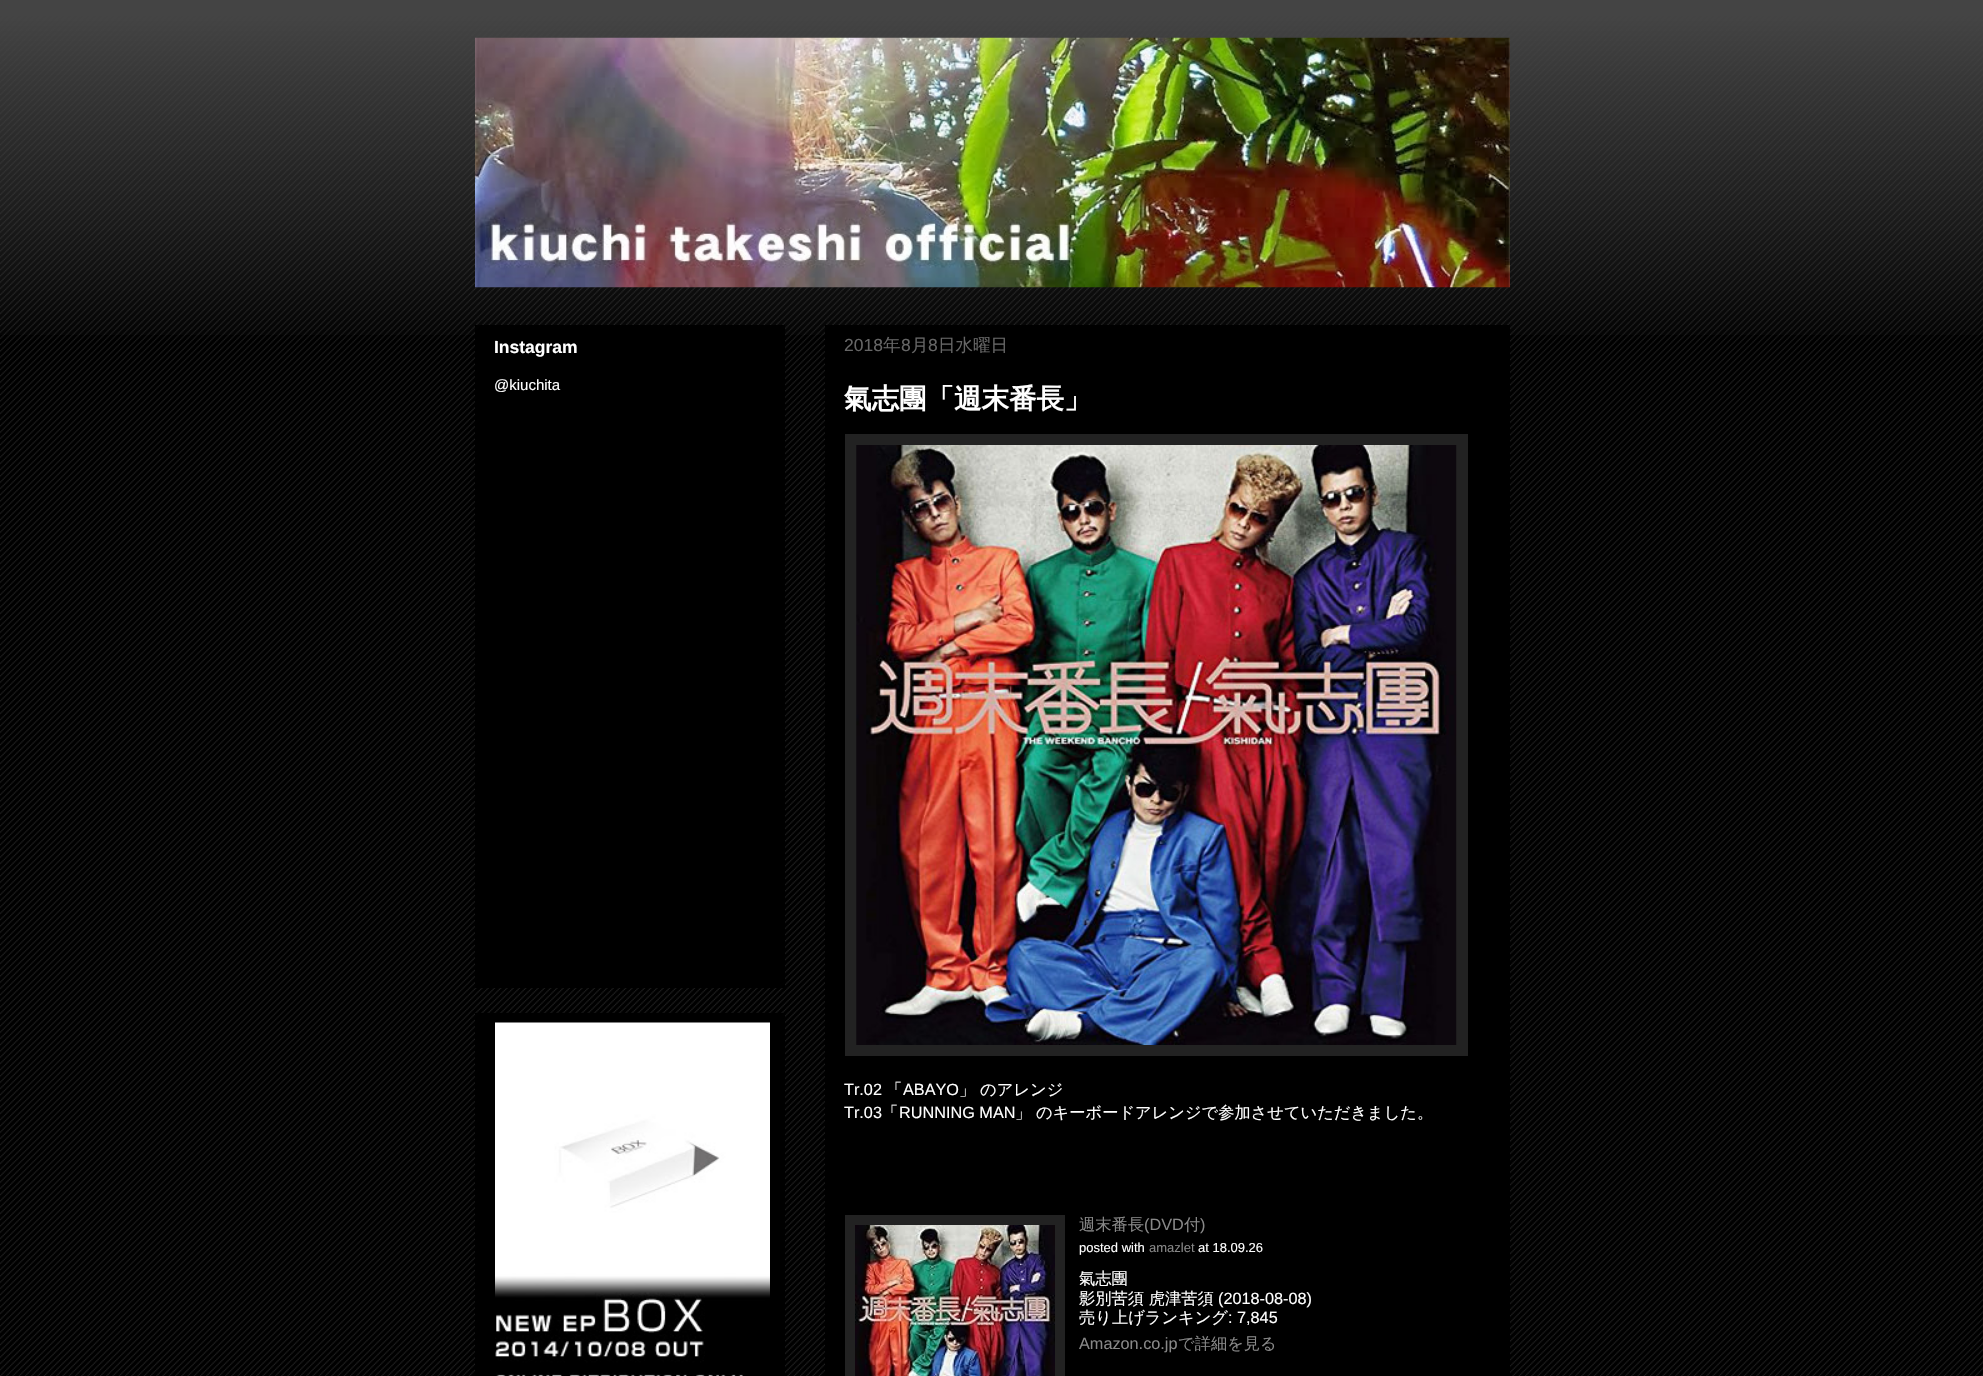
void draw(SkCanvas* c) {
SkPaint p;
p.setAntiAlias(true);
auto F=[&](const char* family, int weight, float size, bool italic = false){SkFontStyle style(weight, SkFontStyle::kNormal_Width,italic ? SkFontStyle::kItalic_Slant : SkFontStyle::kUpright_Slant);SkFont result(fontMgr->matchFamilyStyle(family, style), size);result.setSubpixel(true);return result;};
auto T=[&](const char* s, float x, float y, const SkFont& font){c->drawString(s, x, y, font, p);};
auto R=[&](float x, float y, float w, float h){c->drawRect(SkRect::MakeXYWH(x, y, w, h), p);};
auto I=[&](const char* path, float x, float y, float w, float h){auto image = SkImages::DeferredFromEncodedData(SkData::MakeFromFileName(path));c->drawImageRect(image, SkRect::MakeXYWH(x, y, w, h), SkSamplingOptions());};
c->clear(0xff000000);
I("1.png",0,16,1983,1360);
I("2.png",0,0,1983,335);
I("3.png",475,37,1035,251);
p.setColor(0xff000000);
R(475,325,310,663);
auto f1 = F("Liberation Sans",700,17.5);
p.setColor(0xffffffff);
T("Instagram",494,353,f1);
auto f2 = F("Liberation Sans",400,15);
T("@kiuchita",494,390,f2);
p.setColor(0xff000000);
R(475,1013,310,363);
I("4.png",495,1022,275,354);
R(825,325,685,1051);
auto f3 = F("Liberation Sans",400,17.5);
p.setColor(0xff666666);
T("2018",844,351,f3);
auto f4 = F("WenQuanYi Zen Hei",500,17.5);
T("年",883,351,f4);
T("8",901,351,f3);
T("月",911,351,f4);
T("8",928,351,f3);
T("日水曜日",938,351,f4);
auto f5 = F("WenQuanYi Zen Hei",700,27.5);
p.setColor(0xffffffff);
T("氣志團「週末番長」",844,408,f5);
p.setColor(0xff222222);
R(845,434,623,622);
I("5.png",856,445,601,600);
auto f6 = F("Liberation Sans",400,16.25);
p.setColor(0xffffffff);
T("Tr.02",844,1095,f6);
auto f7 = F("WenQuanYi Zen Hei",500,16.25);
T("「",886,1095,f7);
T("ABAYO",903,1095,f6);
T("」 のアレンジ",959,1095,f7);
T("Tr.03",844,1118,f6);
T("「",882,1118,f7);
T("RUNNING MAN",899,1118,f6);
T("」",1015,1118,f7);
T("のキーボードアレンジで参加させていただきました。",1036,1118,f7);
p.setColor(0xff222222);
R(845,1215,220,161);
I("6.png",855,1225,200,151);
p.setColor(0xff888888);
T("週末番長",1079,1230,f7);
T("(DVD",1144,1230,f6);
T("付",1184,1230,f7);
T(")",1200,1230,f6);
auto f8 = F("Liberation Sans",400,13);
p.setColor(0xffffffff);
T("posted with",1079,1252,f8);
p.setColor(0xff888888);
T("amazlet",1149,1252,f8);
p.setColor(0xffffffff);
T("at 18.09.26",1198,1252,f8);
T("氣志團",1079,1284,f7);
T("影別苦須 虎津苦須",1079,1304,f7);
T("(2018-08-08)",1218,1304,f6);
T("売り上げランキング",1079,1323,f7);
T(": 7,845",1228,1323,f6);
p.setColor(0xff888888);
T("Amazon.co.jp",1079,1349,f6);
T("で詳細を見る",1178,1349,f7);
}
